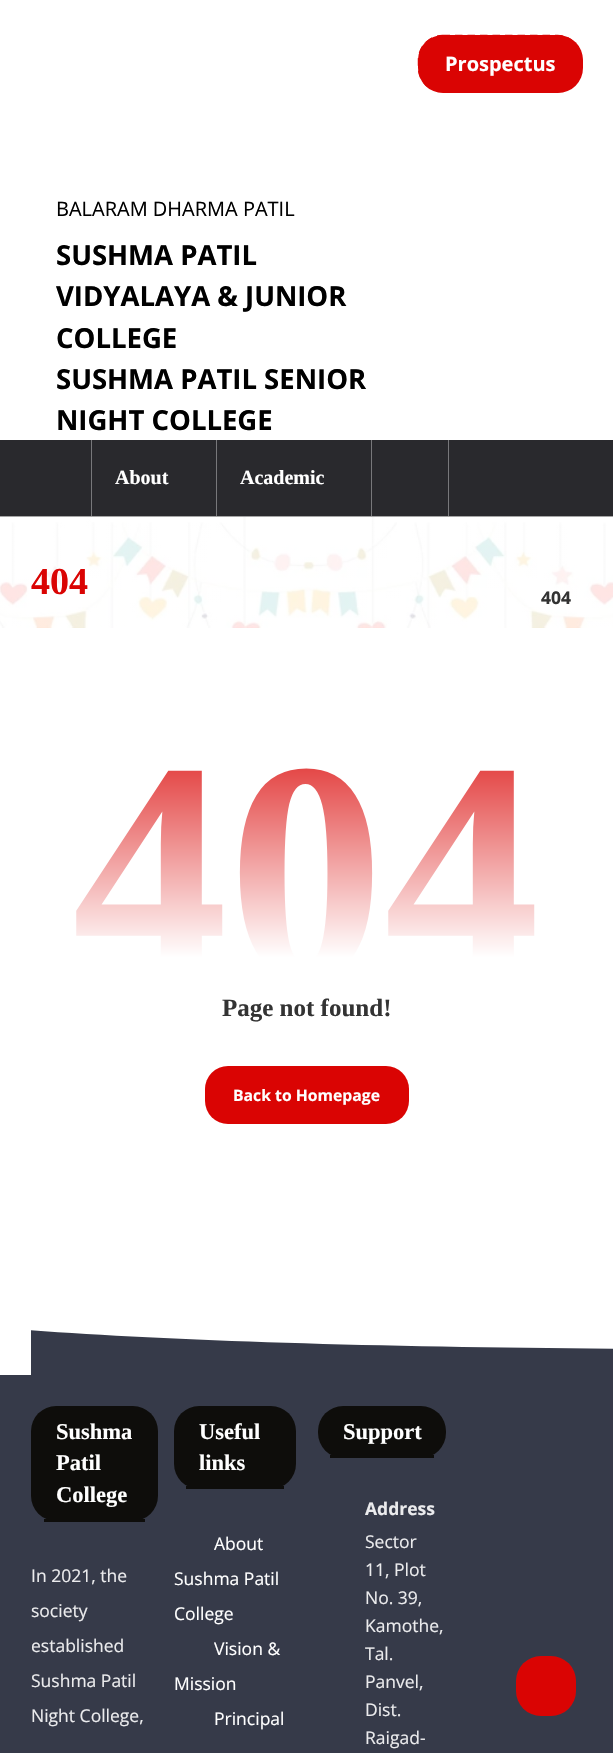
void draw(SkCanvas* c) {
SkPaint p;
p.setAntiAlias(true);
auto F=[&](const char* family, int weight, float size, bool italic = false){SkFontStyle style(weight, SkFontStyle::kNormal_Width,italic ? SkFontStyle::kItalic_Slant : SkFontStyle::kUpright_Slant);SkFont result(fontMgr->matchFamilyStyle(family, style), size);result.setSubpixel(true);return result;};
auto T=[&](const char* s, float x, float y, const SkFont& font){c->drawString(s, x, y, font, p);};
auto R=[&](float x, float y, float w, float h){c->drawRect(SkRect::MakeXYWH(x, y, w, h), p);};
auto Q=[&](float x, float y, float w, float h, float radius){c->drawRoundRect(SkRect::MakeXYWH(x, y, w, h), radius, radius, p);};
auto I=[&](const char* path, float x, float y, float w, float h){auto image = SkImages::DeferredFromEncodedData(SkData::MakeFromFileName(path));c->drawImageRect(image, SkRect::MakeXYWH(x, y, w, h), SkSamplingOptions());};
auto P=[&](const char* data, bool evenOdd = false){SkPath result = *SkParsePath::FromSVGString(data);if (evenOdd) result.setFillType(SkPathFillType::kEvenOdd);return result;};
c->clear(0xffffffff);
p.setColor(0xffda0403);
Q(418,35,165,58,25);
p.setStroke(true);
p.setStrokeWidth(2.5);
p.setPathEffect(SkDashPathEffect::Make({{7.5f,5}}, 0));
c->drawPath(P("M442.5 36h115c13 0 23.5 11 23.5 24v7.5c0 13-10.5 23.5-23.5 23.5h-115c-13 0-23.5-10.5-23.5-23.5v-7.5c0-13 10.5-24 23.5-24z"),p);
p.setPathEffect(nullptr);
auto f1 = F("Open Sans",700,20);
p.setStroke(false);
p.setColor(0xffffffff);
T("Prospectus",445,71,f1);
auto f2 = F("Open Sans",400,20);
p.setColor(0xff000000);
T("BALARAM DHARMA PATIL",56,216,f2);
auto f3 = F("Open Sans",700,27.5);
T("SUSHMA PATIL",56,265,f3);
T("VIDYALAYA & JUNIOR",56,306,f3);
T("COLLEGE",56,348,f3);
T("SUSHMA PATIL SENIOR",56,389,f3);
T("NIGHT COLLEGE",56,430,f3);
p.setColor(0xff29292d);
R(0,440,613,76);
p.setColor(0xff78787b);
R(91,440,1,76);
R(216,440,1,76);
auto f4 = F("Liberation Serif",700,20);
p.setColor(0xffffffff);
T("About",115,484,f4);
p.setColor(0xff78787b);
R(371,440,1,76);
p.setColor(0xffffffff);
T("Academic",240,484,f4);
p.setColor(0xff78787b);
R(448,440,1,76);
I("1.png",0,517,613,111);
p.setColor(0xffa5a5a5);
R(0,516,613,1);
auto f5 = F("Liberation Serif",700,38);
p.setColor(0xffda0403);
T("404",31,594,f5);
auto f6 = F("Open Sans",700,17.5);
p.setColor(0xff333333);
T("404",541,604,f6);
auto f7 = F("Liberation Serif",700,312);
{
const SkColor colors[] = {0xffda0403,0xffffffff};
const float stops[] = {0,.75};
const SkPoint ends[] = {{307,698}, {307,1044}};
p.setShader(SkGradientShader::MakeLinear(ends, colors, stops, 2, SkTileMode::kClamp));
p.setAlpha(255);
}
T("404",72,976,f7);
auto f8 = F("Liberation Serif",700,25);
p.setShader(nullptr);
p.setColor(0xff333333);
T("Page not found!",222,1016,f8);
p.setColor(0xffda0403);
Q(205,1066,204,58,23);
auto f9 = F("Open Sans",700,15.75);
p.setColor(0xffffffff);
T("Back to Homepage",233,1101,f9);
p.setColor(0xff363a49);
R(0,1375,613,378);
c->save();
c->clipRect(SkRect::MakeXYWH(31,1316,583,63));
c->drawPath(P("M28 1379v-49c160 12 410 19 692 19h-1c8 0 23 9 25 17c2-6 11-14 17-16l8-1h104l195-3c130-3 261-6 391-15v48z"),p);
c->restore();
p.setColor(0xff0e0d0b);
Q(31,1406,127,115,25);
R(44,1519,101,3);
auto f10 = F("Liberation Serif",700,22.5);
p.setColor(0xffffffff);
T("Sushma",56,1439,f10);
T("Patil",56,1470,f10);
T("College",56,1502,f10);
auto f11 = F("Open Sans",400,17.5);
p.setColor(0xffebebed);
T("In 2021, the",31,1582,f11);
T("society",31,1617,f11);
T("established",31,1652,f11);
T("Sushma Patil",31,1687,f11);
T("Night College,",31,1722,f11);
p.setColor(0xff0e0d0b);
Q(174,1406,122,83,25);
R(186,1486,98,3);
p.setColor(0xffffffff);
T("Useful",199,1439,f10);
T("links",199,1470,f10);
T("About",214,1550,f11);
T("Sushma Patil",174,1585,f11);
T("College",174,1620,f11);
T("Vision &",214,1655,f11);
T("Mission",174,1690,f11);
T("Principal",214,1725,f11);
p.setColor(0xff0e0d0b);
Q(318,1406,128,52,25);
R(330,1455,104,3);
p.setColor(0xffffffff);
T("Support",343,1439,f10);
p.setColor(0xffebebed);
T("Address",365,1515,f6);
T("Sector",365,1548,f11);
T("11, Plot",365,1576,f11);
T("No. 39,",365,1604,f11);
T("Kamothe,",365,1632,f11);
T("Tal.",365,1660,f11);
T("Panvel,",365,1688,f11);
T("Dist.",365,1716,f11);
T("Raigad-",365,1744,f11);
p.setColor(0xffda0403);
Q(516,1656,60,60,25);
}
